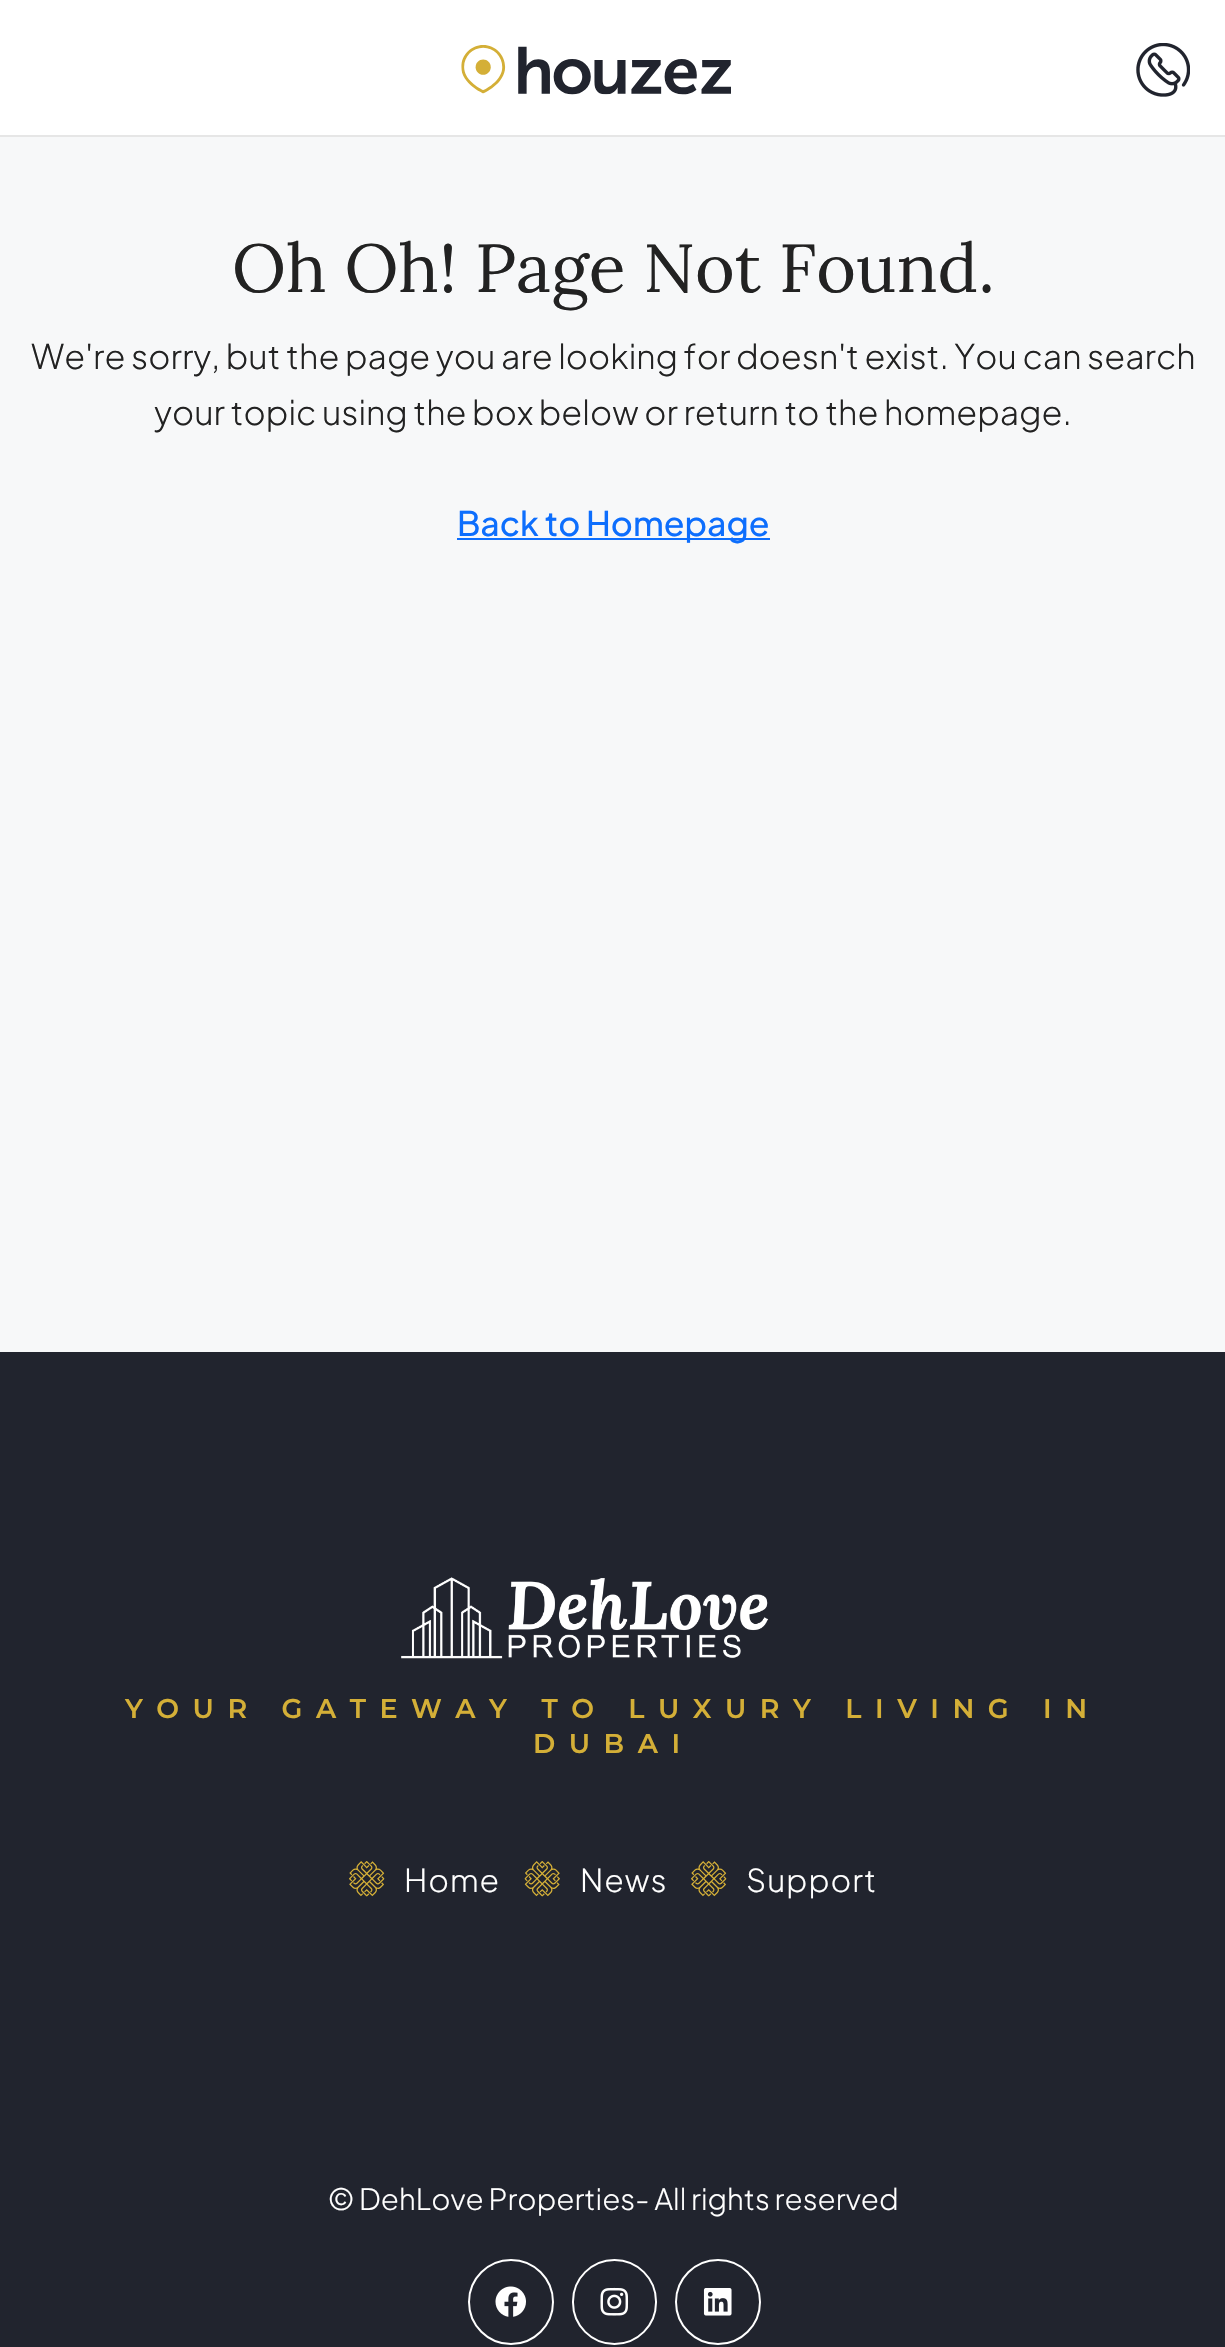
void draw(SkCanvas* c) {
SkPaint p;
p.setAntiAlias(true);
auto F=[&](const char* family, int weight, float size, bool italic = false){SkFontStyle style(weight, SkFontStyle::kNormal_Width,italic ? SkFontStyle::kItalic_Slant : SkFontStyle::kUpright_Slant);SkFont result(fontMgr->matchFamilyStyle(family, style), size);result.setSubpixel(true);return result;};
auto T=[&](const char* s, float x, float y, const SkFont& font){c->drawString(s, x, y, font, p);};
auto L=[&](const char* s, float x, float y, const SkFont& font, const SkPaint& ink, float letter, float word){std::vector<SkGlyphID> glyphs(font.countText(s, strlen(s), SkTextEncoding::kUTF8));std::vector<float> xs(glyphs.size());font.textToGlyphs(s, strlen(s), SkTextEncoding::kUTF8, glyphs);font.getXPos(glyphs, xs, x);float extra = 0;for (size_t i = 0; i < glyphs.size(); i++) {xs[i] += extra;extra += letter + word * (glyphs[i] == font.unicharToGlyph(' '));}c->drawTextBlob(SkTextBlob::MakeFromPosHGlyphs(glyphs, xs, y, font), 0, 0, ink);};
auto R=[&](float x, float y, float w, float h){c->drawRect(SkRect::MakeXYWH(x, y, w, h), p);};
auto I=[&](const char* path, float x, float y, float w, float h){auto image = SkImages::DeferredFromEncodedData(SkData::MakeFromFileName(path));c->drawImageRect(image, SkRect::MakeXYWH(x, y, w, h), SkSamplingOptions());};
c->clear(0xfff7f8f9);
p.setColor(0xffffffff);
R(0,0,1225,135);
p.setColor(0xffe6e6e6);
R(0,135,1225,2);
I("1.png",461,45,270,50);
I("2.png",1136,43,54,54);
auto f1 = F("Lora",400,67.9);
p.setColor(0xff222222);
T("Oh Oh! Page Not Found.",232,292,f1);
auto f2 = F("Plus Jakarta Sans",300,33.75);
T("We're sorry, but the page you are looking for doesn't exist. You can search",31,369,f2);
T("your topic using the box below or return to the homepage.",154,425,f2);
p.setColor(0xff0d6efd);
R(457,538,313,2);
auto f3 = F("Plus Jakarta Sans",500,33.75);
T("Back to Homepage",457,536,f3);
p.setColor(0xff21242e);
R(0,1352,1225,995);
I("3.png",401,1577,368,82);
auto f4 = F("Montserrat",600,27);
p.setColor(0xffd4af37);
L("YOUR GATEWAY TO LUXURY LIVING IN",125,1718,f4,p,13.5,0);
L("DUBAI",533,1753,f4,p,13.5,0);
I("4.png",349,1861,36,36);
auto f5 = F("Plus Jakarta Sans",300,31.5);
p.setColor(0xffffffff);
L("Home",404,1892,f5,p,1,0);
I("5.png",524,1861,36,36);
L("News",580,1892,f5,p,1,0);
I("4.png",691,1861,36,36);
L("Support",746,1892,f5,p,1,0);
auto f6 = F("Plus Jakarta Sans",300,29.25);
T("© DehLove Properties- All rights reserved",328,2210,f6);
p.setStroke(true);
p.setStrokeWidth(2);
c->drawCircle(511,2302,42,p);
I("6.png",495,2286,31,31);
c->drawRoundRect(SkRect::MakeXYWH(573,2260,83,84),41.5,41.5,p);
I("7.png",600,2287,29,29);
c->drawCircle(718,2302,42,p);
I("8.png",703,2288,29,28);
}
